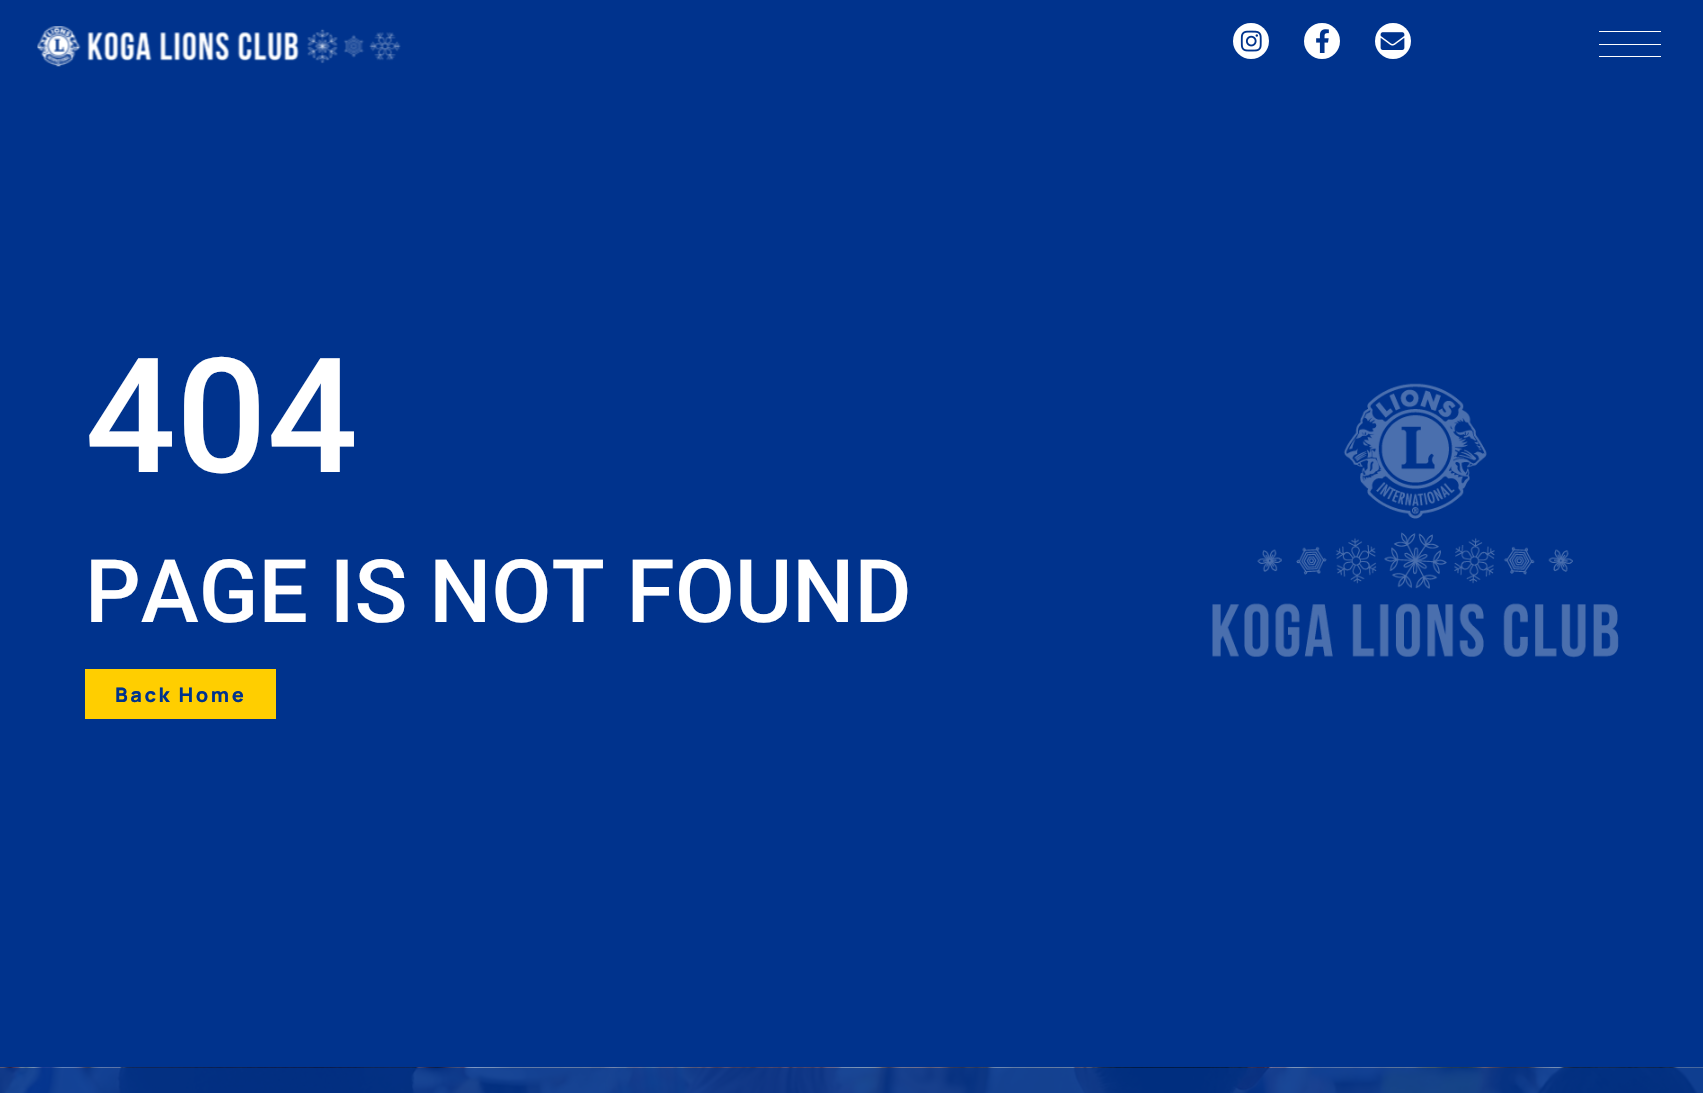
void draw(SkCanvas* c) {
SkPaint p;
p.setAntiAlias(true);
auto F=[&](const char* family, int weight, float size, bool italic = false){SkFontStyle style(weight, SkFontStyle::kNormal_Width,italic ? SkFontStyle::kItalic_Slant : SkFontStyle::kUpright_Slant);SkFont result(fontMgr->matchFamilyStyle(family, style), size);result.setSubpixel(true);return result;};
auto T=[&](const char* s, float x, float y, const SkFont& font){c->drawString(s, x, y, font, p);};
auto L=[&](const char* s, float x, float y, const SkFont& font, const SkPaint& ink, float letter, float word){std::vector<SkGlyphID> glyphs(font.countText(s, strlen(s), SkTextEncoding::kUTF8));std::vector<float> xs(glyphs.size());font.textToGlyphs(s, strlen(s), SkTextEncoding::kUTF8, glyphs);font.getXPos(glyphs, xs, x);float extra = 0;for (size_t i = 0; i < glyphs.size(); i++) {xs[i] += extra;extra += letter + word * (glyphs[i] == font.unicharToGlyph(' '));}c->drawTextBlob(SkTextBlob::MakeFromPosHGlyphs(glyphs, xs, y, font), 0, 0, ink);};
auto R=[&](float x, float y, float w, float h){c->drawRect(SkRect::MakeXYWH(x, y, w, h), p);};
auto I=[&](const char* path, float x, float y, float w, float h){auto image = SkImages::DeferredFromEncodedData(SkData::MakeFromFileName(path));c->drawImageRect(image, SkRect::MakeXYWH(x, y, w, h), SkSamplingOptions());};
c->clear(0xff00338d);
I("1.png",37,26,364,41);
p.setColor(0xffffffff);
c->drawCircle(1251,41,18,p);
I("2.png",1240,30,22,22);
c->drawCircle(1322,41,18,p);
I("3.png",1316,29,13,24);
c->drawCircle(1393,41,18,p);
I("4.png",1380,32,25,18);
R(1599,31,62,1);
R(1599,44,62,1);
R(1599,56,62,1);
auto f1 = F("Roboto",500,160);
T("404",85,472,f1);
auto f2 = F("Roboto",500,87.5);
T("PAGE IS NOT FOUND",85,622,f2);
p.setColor(0xffffce00);
R(85,669,191,50);
auto f3 = F("Manrope",800,20);
p.setColor(0xff00338d);
L("Back Home",115,702,f3,p,2.5,0);
I("5.png",1212,383,407,275);
I("6.png",0,1067,1703,26);
}
